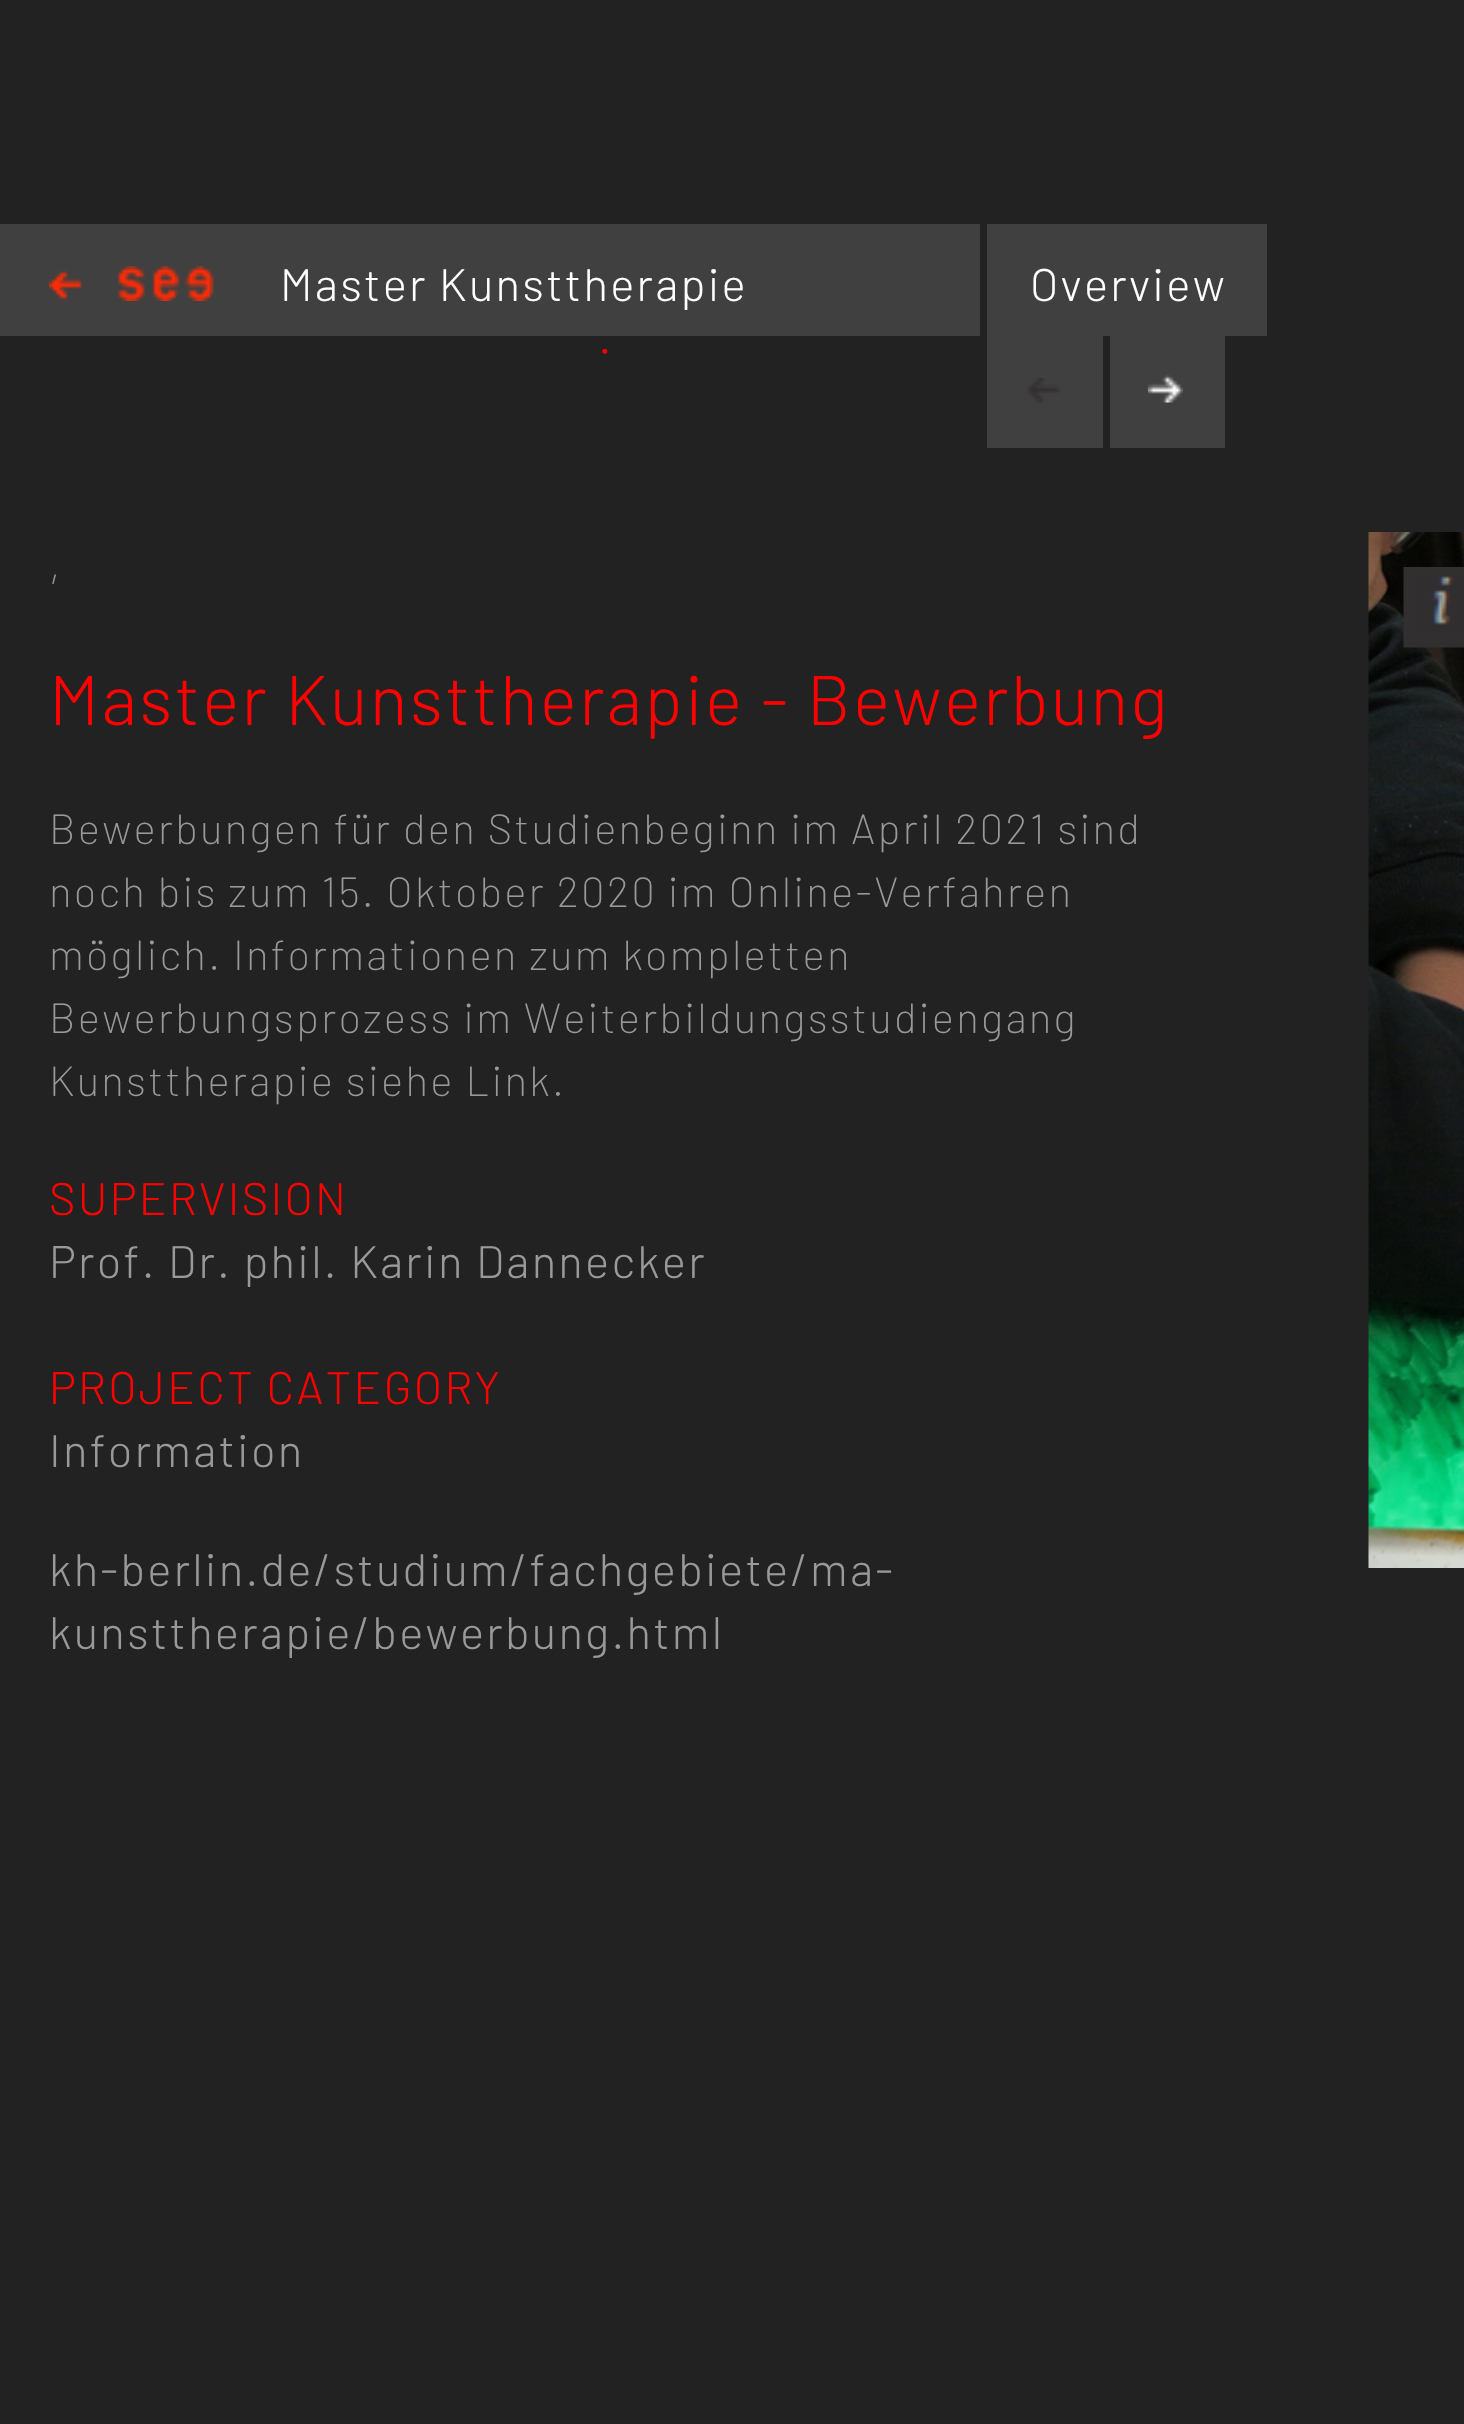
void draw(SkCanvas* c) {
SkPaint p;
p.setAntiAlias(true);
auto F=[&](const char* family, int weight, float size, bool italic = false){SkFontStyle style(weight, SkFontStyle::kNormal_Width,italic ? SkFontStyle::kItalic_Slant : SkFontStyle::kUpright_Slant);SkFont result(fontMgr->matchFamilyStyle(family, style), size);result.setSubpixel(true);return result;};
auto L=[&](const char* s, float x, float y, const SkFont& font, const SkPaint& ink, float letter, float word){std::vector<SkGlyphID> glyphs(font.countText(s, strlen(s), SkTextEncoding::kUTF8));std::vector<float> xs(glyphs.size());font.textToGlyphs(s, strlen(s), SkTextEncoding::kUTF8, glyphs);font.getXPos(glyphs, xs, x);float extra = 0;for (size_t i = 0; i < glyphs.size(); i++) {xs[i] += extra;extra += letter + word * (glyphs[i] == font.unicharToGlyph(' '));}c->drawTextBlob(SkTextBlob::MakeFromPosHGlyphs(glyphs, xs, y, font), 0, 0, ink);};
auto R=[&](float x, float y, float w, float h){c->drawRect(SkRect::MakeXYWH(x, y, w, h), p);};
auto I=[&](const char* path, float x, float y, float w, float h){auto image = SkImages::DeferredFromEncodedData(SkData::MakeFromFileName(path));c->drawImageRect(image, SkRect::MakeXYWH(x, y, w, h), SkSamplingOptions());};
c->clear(0xff222222);
p.setColor(0xff404040);
R(0,224,980,112);
I("1.png",49,266,165,35);
auto f1 = F("Barlow",300,45.5);
p.setColor(0xffffffff);
L("Master Kunsttherapie",280,301,f1,p,2.27,0);
p.setColor(0xff404040);
R(987,224,280,112);
p.setColor(0xffffffff);
L("Overview",1030,301,f1,p,2.27,0);
p.setColor(0xff404040);
R(987,336,116,112);
I("2.png",1026,378,34,25);
R(1110,336,115,112);
I("3.png",1148,374,35,29);
auto f2 = F("Barlow",300,49);
p.setColor(0xffff0000);
L(".",598,354,f2,p,2,0);
auto f3 = F("Barlow",200,42);
p.setColor(0xff999999);
L(",",49,581,f3,p,2.27,0);
auto f4 = F("Barlow",300,70);
p.setColor(0xffff0000);
L("Master Kunsttherapie - Bewerbung",49,725,f4,p,2.27,0);
p.setColor(0xff999999);
L("Bewerbungen für den Studienbeginn im April 2021 sind",49,844,f3,p,2.27,0);
L("noch bis zum 15. Oktober 2020 im Online-Verfahren",49,907,f3,p,2.27,0);
L("möglich. Informationen zum kompletten",49,970,f3,p,2.27,0);
L("Bewerbungsprozess im Weiterbildungsstudiengang",49,1033,f3,p,2.27,0);
L("Kunsttherapie siehe Link.",49,1096,f3,p,2.27,0);
p.setColor(0xffff0000);
L("SUPERVISION",49,1215,f1,p,2.27,0);
p.setColor(0xff999999);
L("Prof. Dr. phil. Karin Dannecker",49,1278,f1,p,2.27,0);
p.setColor(0xffff0000);
L("PROJECT CATEGORY",49,1404,f1,p,2.27,0);
p.setColor(0xff999999);
L("Information",49,1467,f1,p,2.27,0);
L("kh-berlin.de/studium/fachgebiete/ma-",49,1586,f1,p,2.27,0);
L("kunsttherapie/bewerbung.html",49,1649,f1,p,2.27,0);
I("4.png",1368,532,96,1036);
I("5.png",1403,567,61,81);
}
